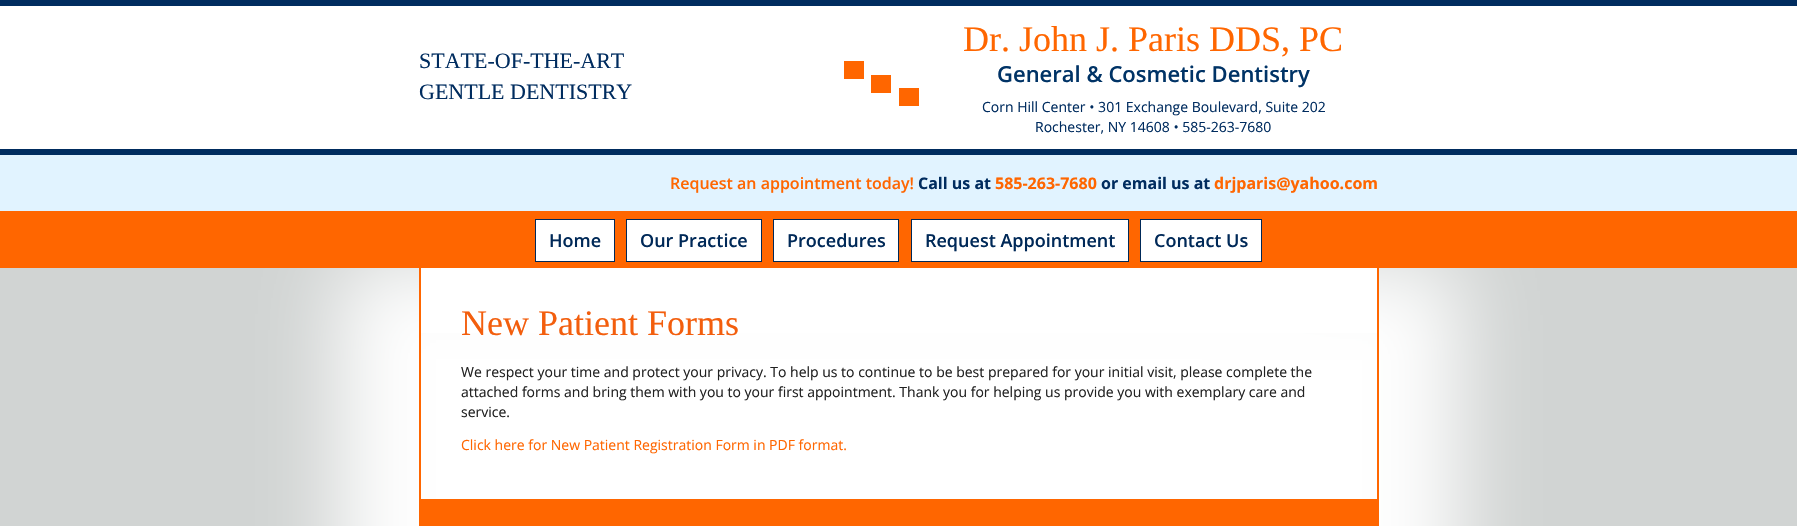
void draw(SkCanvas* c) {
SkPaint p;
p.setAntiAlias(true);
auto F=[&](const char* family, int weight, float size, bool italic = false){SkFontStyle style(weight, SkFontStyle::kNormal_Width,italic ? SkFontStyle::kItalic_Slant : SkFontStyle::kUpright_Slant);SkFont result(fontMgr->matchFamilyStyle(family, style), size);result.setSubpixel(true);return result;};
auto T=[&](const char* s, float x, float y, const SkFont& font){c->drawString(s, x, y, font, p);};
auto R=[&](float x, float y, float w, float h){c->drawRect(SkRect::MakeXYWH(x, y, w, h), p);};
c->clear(0xffd1d4d3);
p.setColor(0xffffffff);
p.setMaskFilter(SkMaskFilter::MakeBlur(kNormal_SkBlurStyle, 40));
c->drawRect(SkRect::MakeXYWH(339,262,960,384),p);
p.setMaskFilter(nullptr);
p.setMaskFilter(SkMaskFilter::MakeBlur(kNormal_SkBlurStyle, 40));
c->drawRect(SkRect::MakeXYWH(499,263,960,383),p);
p.setMaskFilter(nullptr);
R(0,6,1797,143);
p.setColor(0xff002c5f);
R(0,0,1797,6);
R(0,149,1797,6);
auto f1 = F("Liberation Serif",400,22);
T("STATE-OF-THE-ART",419,68,f1);
T("GENTLE DENTISTRY",419,99,f1);
p.setColor(0xffff6600);
R(844,61,20,18);
R(871,75,20,18);
R(899,88,20,18);
auto f2 = F("Liberation Serif",400,36);
T("Dr. John J. Paris DDS, PC",963,51,f2);
auto f3 = F("Open Sans",600,22);
p.setColor(0xff003366);
T("General & Cosmetic Dentistry",997,82,f3);
auto f4 = F("Open Sans",400,14);
p.setColor(0xff002c5f);
T("Corn Hill Center • 301 Exchange Boulevard, Suite 202",982,112,f4);
T("Rochester, NY 14608 • 585-263-7680",1035,132,f4);
p.setColor(0xffe1f3ff);
R(0,155,1797,56);
auto f5 = F("Open Sans",600,16);
p.setColor(0xffff6600);
T("Request an appointment today!",670,189,f5);
auto f6 = F("Open Sans",700,16);
p.setColor(0xff002c5f);
T("Call us at",918,189,f6);
p.setColor(0xffff6600);
T("585-263-7680",995,189,f6);
p.setColor(0xff002c5f);
T("or email us at",1101,189,f6);
p.setColor(0xffff6600);
T("drjparis@yahoo.com",1214,189,f6);
R(0,211,1797,57);
p.setColor(0xffffffff);
c->drawRect(SkRect::MakeXYWH(535.5,219.5,79,42),p);
p.setStroke(true);
p.setStrokeWidth(1);
p.setColor(0xff002958);
c->drawRect(SkRect::MakeXYWH(535.5,219.5,79,42),p);
auto f7 = F("Open Sans",600,18);
p.setStroke(false);
T("Home",549,247,f7);
p.setColor(0xffffffff);
c->drawRect(SkRect::MakeXYWH(626.5,219.5,135,42),p);
p.setStroke(true);
p.setColor(0xff002958);
c->drawRect(SkRect::MakeXYWH(626.5,219.5,135,42),p);
p.setStroke(false);
T("Our Practice",640,247,f7);
p.setColor(0xffffffff);
c->drawRect(SkRect::MakeXYWH(773.5,219.5,125,42),p);
p.setStroke(true);
p.setColor(0xff002958);
c->drawRect(SkRect::MakeXYWH(773.5,219.5,125,42),p);
p.setStroke(false);
T("Procedures",787,247,f7);
p.setColor(0xffffffff);
c->drawRect(SkRect::MakeXYWH(911.5,219.5,217,42),p);
p.setStroke(true);
p.setColor(0xff002958);
c->drawRect(SkRect::MakeXYWH(911.5,219.5,217,42),p);
p.setStroke(false);
T("Request Appointment",925,247,f7);
p.setColor(0xffffffff);
c->drawRect(SkRect::MakeXYWH(1140.5,219.5,121,42),p);
p.setStroke(true);
p.setColor(0xff002958);
c->drawRect(SkRect::MakeXYWH(1140.5,219.5,121,42),p);
p.setStroke(false);
T("Contact Us",1154,247,f7);
p.setColor(0xffffffff);
R(421,268,956,65);
p.setColor(0xffff6600);
R(1377,268,2,231);
R(419,268,2,231);
p.setColor(0xfff35e0d);
T("New Patient Forms",461,335,f2);
p.setColor(0xff222222);
T("We respect your time and protect your privacy. To help us to continue to be best prepared for your initial visit, please complete the",461,377,f4);
T("attached forms and bring them with you to your first appointment. Thank you for helping us provide you with exemplary care and",461,397,f4);
T("service.",461,417,f4);
p.setColor(0xffff6600);
T("Click here for New Patient Registration Form in PDF format.",461,450,f4);
R(419,499,960,27);
}
